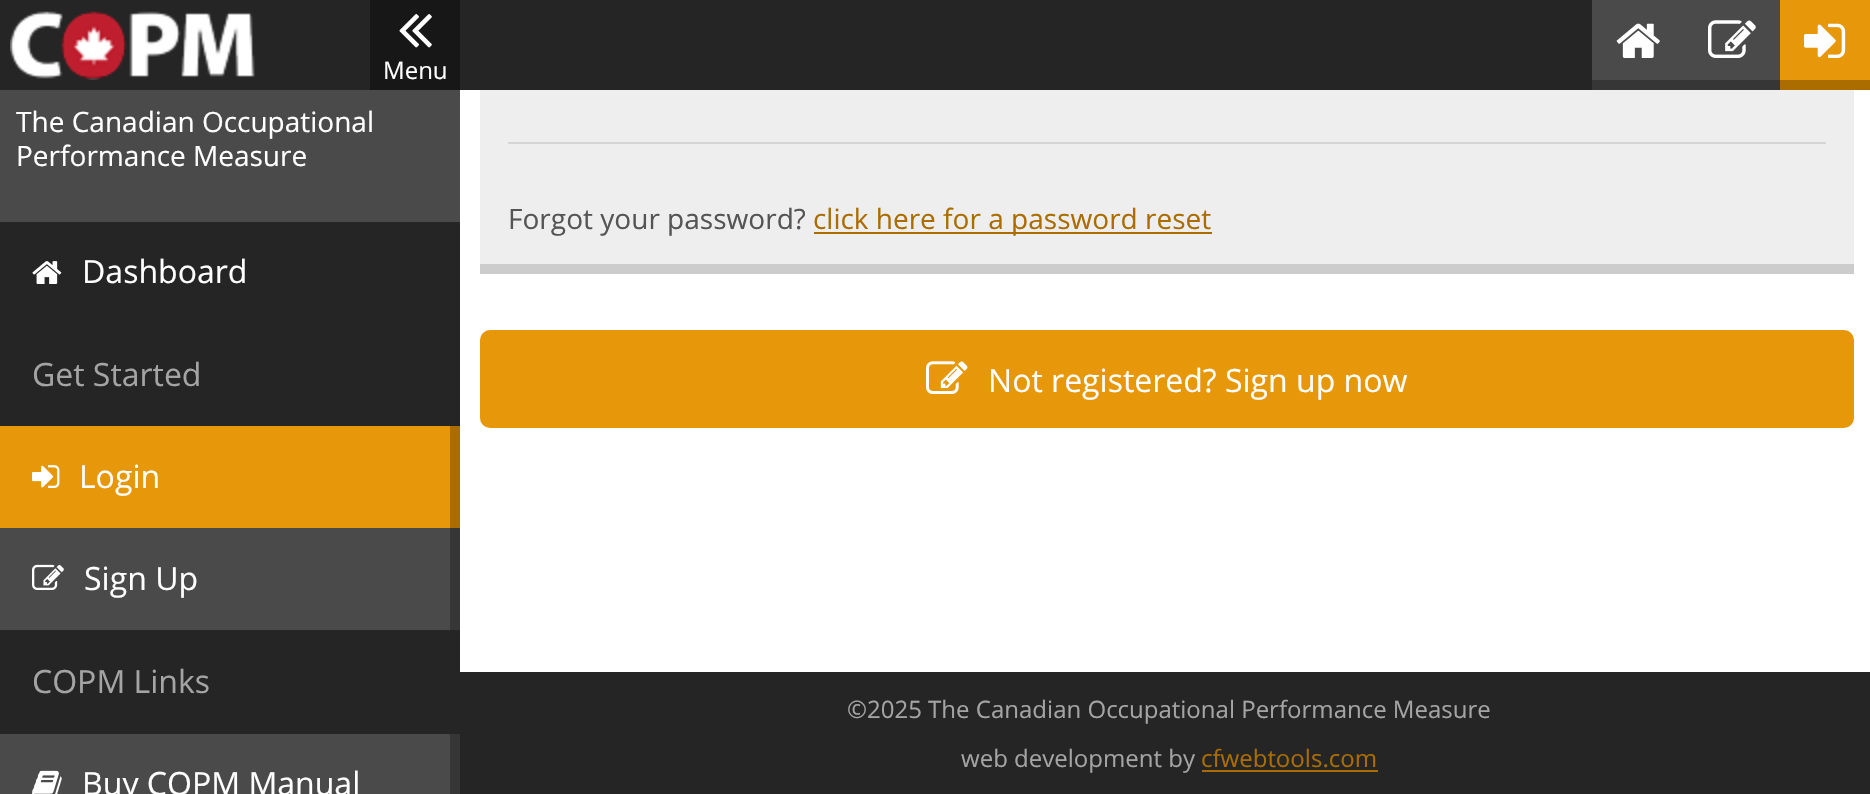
void draw(SkCanvas* c) {
SkPaint p;
p.setAntiAlias(true);
auto F=[&](const char* family, int weight, float size, bool italic = false){SkFontStyle style(weight, SkFontStyle::kNormal_Width,italic ? SkFontStyle::kItalic_Slant : SkFontStyle::kUpright_Slant);SkFont result(fontMgr->matchFamilyStyle(family, style), size);result.setSubpixel(true);return result;};
auto T=[&](const char* s, float x, float y, const SkFont& font){c->drawString(s, x, y, font, p);};
auto R=[&](float x, float y, float w, float h){c->drawRect(SkRect::MakeXYWH(x, y, w, h), p);};
auto I=[&](const char* path, float x, float y, float w, float h){auto image = SkImages::DeferredFromEncodedData(SkData::MakeFromFileName(path));c->drawImageRect(image, SkRect::MakeXYWH(x, y, w, h), SkSamplingOptions());};
c->clear(0xffffffff);
p.setColor(0xff252525);
R(0,0,370,90);
I("1.png",10,11,245,69);
p.setColor(0xff171717);
R(370,0,90,90);
I("2.png",399,14,33,34);
auto f1 = F("Open Sans",400,24);
p.setColor(0xffffffff);
T("Menu",383,79,f1);
p.setColor(0xff252525);
R(460,0,1132,90);
p.setColor(0xff4a4a4a);
R(1592,0,188,80);
p.setColor(0xff363636);
R(1592,80,188,10);
I("3.png",1616,23,44,35);
p.setColor(0xffe7970a);
R(1780,0,90,80);
p.setColor(0xffac6d00);
R(1780,80,90,10);
I("4.png",1804,23,42,35);
I("5.png",1708,20,48,38);
p.setColor(0xff4a4a4a);
R(0,90,460,704);
auto f2 = F("Open Sans",400,28);
p.setColor(0xffffffff);
T("The Canadian Occupational",16,132,f2);
T("Performance Measure",16,166,f2);
p.setColor(0xff252525);
R(0,222,460,204);
I("6.png",32,261,30,23);
auto f3 = F("Open Sans",400,32);
p.setColor(0xffffffff);
T("Dashboard",82,283,f3);
p.setColor(0xffa4a4a4);
T("Get Started",32,386,f3);
p.setColor(0xffe7970a);
R(0,426,450,102);
p.setColor(0xffac6d00);
R(450,426,10,102);
I("7.png",32,465,28,23);
p.setColor(0xffffffff);
T("Login",79,488,f3);
p.setColor(0xff363636);
R(450,528,10,102);
I("8.png",32,564,32,26);
p.setColor(0xffffffff);
T("Sign Up",84,590,f3);
p.setColor(0xff252525);
R(0,630,460,104);
p.setColor(0xffa4a4a4);
T("COPM Links",32,693,f3);
p.setColor(0xff363636);
R(450,734,10,60);
I("9.png",32,770,30,24);
p.setColor(0xffffffff);
T("Buy COPM Manual",82,795,f3);
p.setColor(0xffeeeeee);
R(480,90,1374,174);
p.setColor(0xffcccccc);
R(480,264,1374,10);
p.setColor(0xffd5d5d5);
R(508,142,1318,2);
p.setColor(0xff555555);
T("Forgot your password?",508,229,f2);
p.setColor(0xffac6d00);
R(814,232,398,2);
T("click here for a password reset",813,229,f2);
p.setColor(0xffe7970a);
c->drawRoundRect(SkRect::MakeXYWH(481,331,1372,96),9,9,p);
p.setStroke(true);
p.setStrokeWidth(2);
c->drawRoundRect(SkRect::MakeXYWH(481,331,1372,96),9,9,p);
I("10.png",926,361,42,33);
p.setStroke(false);
p.setColor(0xffffffff);
T("Not registered? Sign up now",988,392,f3);
p.setColor(0xff252525);
R(460,672,1410,122);
p.setColor(0xffa4a4a4);
T("©2025 The Canadian Occupational Performance Measure",847,718,f1);
T("web development by",961,767,f1);
p.setColor(0xffac6d00);
T("cfwebtools.com",1201,767,f1);
R(1202,770,176,2);
}
